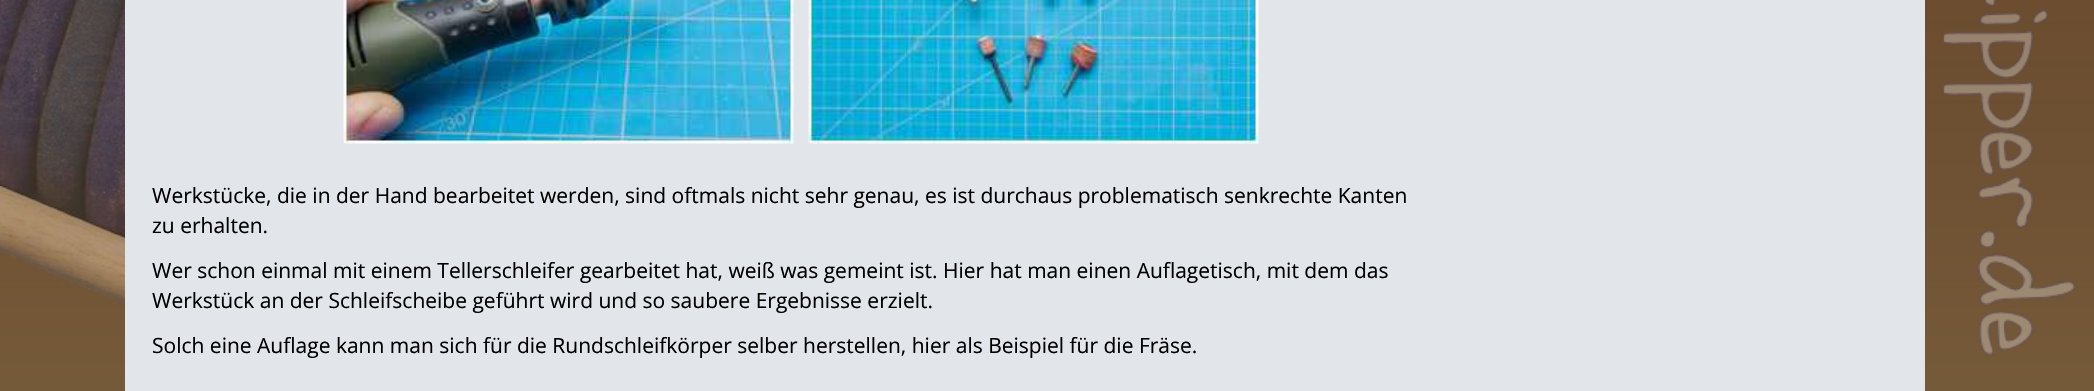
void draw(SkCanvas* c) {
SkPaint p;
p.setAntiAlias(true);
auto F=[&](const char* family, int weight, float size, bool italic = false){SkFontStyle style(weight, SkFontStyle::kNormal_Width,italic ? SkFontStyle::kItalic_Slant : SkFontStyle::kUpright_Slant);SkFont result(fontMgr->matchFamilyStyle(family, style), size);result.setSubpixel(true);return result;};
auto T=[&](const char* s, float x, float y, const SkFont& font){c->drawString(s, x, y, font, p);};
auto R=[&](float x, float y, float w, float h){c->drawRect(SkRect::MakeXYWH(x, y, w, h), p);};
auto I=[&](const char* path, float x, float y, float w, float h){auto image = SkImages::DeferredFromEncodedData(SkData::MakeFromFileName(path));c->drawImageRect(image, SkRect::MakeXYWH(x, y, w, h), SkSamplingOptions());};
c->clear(0xffffffff);
I("1.png",0,0,2094,391);
I("2.png",0,0,125,305);
p.setColor(0xffe2e5ea);
R(125,0,1800,391);
I("3.png",343,0,451,144);
I("4.png",808,0,451,144);
auto f1 = F("Open Sans",400,21);
p.setColor(0xff000000);
T("Werkstücke, die in der Hand bearbeitet werden, sind oftmals nicht sehr genau, es ist durchaus problematisch senkrechte Kanten",152,203,f1);
T("zu erhalten.",152,233,f1);
T("Wer schon einmal mit einem Tellerschleifer gearbeitet hat, weiß was gemeint ist. Hier hat man einen Auflagetisch, mit dem das",152,278,f1);
T("Werkstück an der Schleifscheibe geführt wird und so saubere Ergebnisse erzielt.",152,308,f1);
T("Solch eine Auflage kann man sich für die Rundschleifkörper selber herstellen, hier als Beispiel für die Fräse.",152,353,f1);
I("5.png",1943,0,133,356);
}
